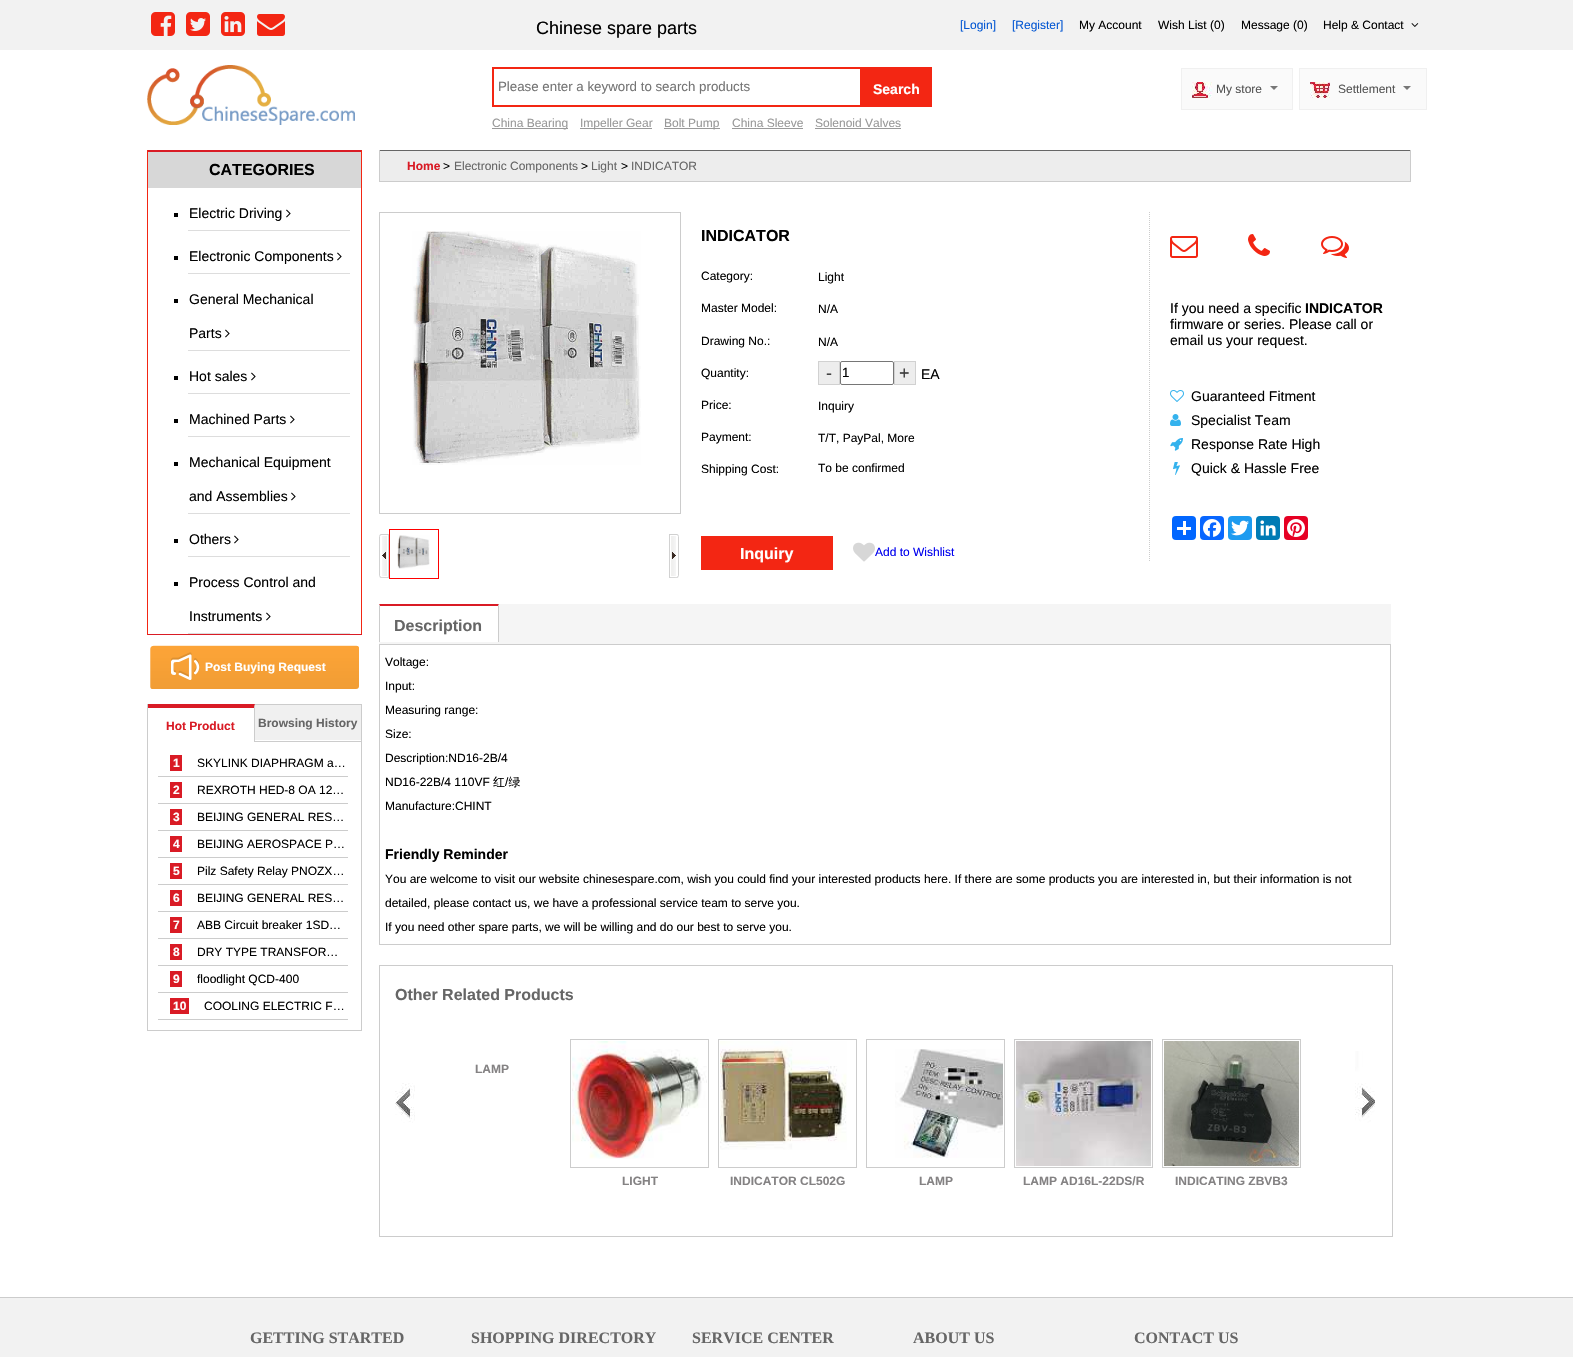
void draw(SkCanvas* c) {
SkPaint p;
p.setAntiAlias(true);
auto F=[&](const char* family, int weight, float size, bool italic = false){SkFontStyle style(weight, SkFontStyle::kNormal_Width,italic ? SkFontStyle::kItalic_Slant : SkFontStyle::kUpright_Slant);SkFont result(fontMgr->matchFamilyStyle(family, style), size);result.setSubpixel(true);return result;};
auto T=[&](const char* s, float x, float y, const SkFont& font){c->drawString(s, x, y, font, p);};
auto R=[&](float x, float y, float w, float h){c->drawRect(SkRect::MakeXYWH(x, y, w, h), p);};
auto Q=[&](float x, float y, float w, float h, float radius){c->drawRoundRect(SkRect::MakeXYWH(x, y, w, h), radius, radius, p);};
auto I=[&](const char* path, float x, float y, float w, float h){auto image = SkImages::DeferredFromEncodedData(SkData::MakeFromFileName(path));c->drawImageRect(image, SkRect::MakeXYWH(x, y, w, h), SkSamplingOptions());};
auto P=[&](const char* data, bool evenOdd = false){SkPath result = *SkParsePath::FromSVGString(data);if (evenOdd) result.setFillType(SkPathFillType::kEvenOdd);return result;};
c->clear(0xffffffff);
p.setColor(0xfff2f2f2);
R(0,0,1573,50);
I("1.png",151,12,24,24);
I("2.png",186,12,24,24);
I("3.png",221,12,24,24);
I("4.png",257,14,28,22);
auto f1 = F("Liberation Sans",400,18);
p.setColor(0xff000000);
T("Chinese spare parts",536,34,f1);
auto f2 = F("Liberation Sans",400,12);
p.setColor(0xff0558d3);
T("[Login]",960,29,f2);
T("[Register]",1012,29,f2);
p.setColor(0xff000000);
T("My Account",1079,29,f2);
T("Wish List (0)",1158,29,f2);
T("Message (0)",1241,29,f2);
T("Help & Contact",1323,29,f2);
I("5.png",1411,23,8,4);
I("6.png",147,65,208,60);
p.setColor(0xfff32613);
R(492,67,440,40);
p.setColor(0xffffffff);
R(494,69,366,36);
auto f3 = F("Liberation Sans",400,13.3);
p.setColor(0xff757575);
T("Please enter a keyword to search products",498,91,f3);
auto f4 = F("Liberation Sans",700,14);
p.setColor(0xffffffff);
T("Search",873,94,f4);
p.setColor(0xff999999);
R(492,128,76,1);
T("China Bearing",492,127,f2);
R(580,128,72,1);
T("Impeller Gear",580,127,f2);
R(664,128,56,1);
T("Bolt Pump",664,127,f2);
T("China Sleeve",732,127,f2);
R(732,128,71,1);
T("Solenoid Valves",815,127,f2);
R(815,128,86,1);
p.setColor(0xfffafafa);
c->drawRect(SkRect::MakeXYWH(1181.5,68.5,111,41),p);
p.setStroke(true);
p.setStrokeWidth(1);
p.setColor(0xfff0f0f0);
c->drawRect(SkRect::MakeXYWH(1181.5,68.5,111,41),p);
I("7.png",1192,82,20,16);
p.setStroke(false);
p.setColor(0xff555555);
T("My store",1216,93,f2);
p.setColor(0xff777777);
c->drawPath(P("M1270 86h8l-4 4z"),p);
p.setColor(0xfffafafa);
c->drawRect(SkRect::MakeXYWH(1299.5,68.5,127,41),p);
p.setStroke(true);
p.setColor(0xfff0f0f0);
c->drawRect(SkRect::MakeXYWH(1299.5,68.5,127,41),p);
I("8.png",1310,82,20,16);
p.setStroke(false);
p.setColor(0xff555555);
T("Settlement",1338,93,f2);
p.setColor(0xff777777);
c->drawPath(P("M1403 86h8l-4 4z"),p);
p.setColor(0xfff32613);
R(361,150,1,485);
p.setColor(0xffd91b25);
R(147,634,215,1);
p.setColor(0xfff32613);
R(147,150,1,485);
p.setColor(0xffd7d7d7);
R(148,152,213,36);
p.setColor(0xffd91b25);
R(148,150,213,2);
auto f5 = F("Liberation Sans",700,16);
p.setColor(0xff000000);
T("CATEGORIES",209,175,f5);
p.setColor(0xffdddddd);
R(188,230,162,1);
p.setColor(0xff000000);
R(174,213,4,4);
auto f6 = F("Liberation Sans",400,14);
T("Electric Driving",189,218,f6);
I("9.png",286,209,5,9);
p.setColor(0xffdddddd);
R(188,273,162,1);
p.setColor(0xff000000);
R(174,256,4,4);
T("Electronic Components",189,261,f6);
I("9.png",337,252,5,9);
p.setColor(0xffdddddd);
R(188,350,162,1);
p.setColor(0xff000000);
R(174,299,4,4);
T("General Mechanical",189,304,f6);
T("Parts",189,338,f6);
I("9.png",225,329,5,9);
p.setColor(0xffdddddd);
R(188,393,162,1);
p.setColor(0xff000000);
R(174,376,4,4);
T("Hot sales",189,381,f6);
I("9.png",251,372,5,9);
p.setColor(0xffdddddd);
R(188,436,162,1);
p.setColor(0xff000000);
R(174,419,4,4);
T("Machined Parts",189,424,f6);
I("9.png",290,415,5,9);
p.setColor(0xffdddddd);
R(188,513,162,1);
p.setColor(0xff000000);
R(174,462,4,4);
T("Mechanical Equipment",189,467,f6);
T("and Assemblies",189,501,f6);
I("9.png",291,492,5,9);
p.setColor(0xffdddddd);
R(188,556,162,1);
p.setColor(0xff000000);
R(174,539,4,4);
T("Others",189,544,f6);
I("9.png",234,535,5,9);
p.setColor(0xffdddddd);
R(188,633,162,1);
p.setColor(0xff000000);
R(174,582,4,4);
T("Process Control and",189,587,f6);
T("Instruments",189,621,f6);
I("9.png",266,612,5,9);
I("10.png",150,645,209,44);
I("11.png",171,652,29,28);
auto f7 = F("Liberation Sans",700,12);
p.setColor(0xffffffff);
T("Post Buying Request",205,671,f7);
p.setColor(0xfff0f0f0);
R(255,705,106,35);
p.setColor(0xffcccccc);
R(147,704,1,327);
R(361,740,1,291);
p.setStroke(true);
c->drawRect(SkRect::MakeXYWH(254.5,704.5,107,37),p);
p.setStroke(false);
p.setColor(0xffffffff);
R(254,704,1,37);
p.setColor(0xffd91b25);
c->drawPath(P("M148 704h107l-1 4h-106z"),p);
p.setColor(0xffcccccc);
c->drawPath(P("M255 704v37h-1v-33z"),p);
p.setColor(0xffd91b25);
T("Hot Product",166,730,f7);
p.setColor(0xff666666);
T("Browsing History",258,727,f7);
p.setColor(0xffcccccc);
R(148,1030,214,1);
R(158,776,190,1);
p.setColor(0xffd91b25);
R(170,755,12,16);
p.setColor(0xffffffff);
T("1",173,767,f7);
p.setColor(0xff000000);
T("SKYLINK DIAPHRAGM a…",197,767,f2);
p.setColor(0xffcccccc);
R(158,803,190,1);
p.setColor(0xffd91b25);
R(170,782,12,16);
p.setColor(0xffffffff);
T("2",173,794,f7);
p.setColor(0xff000000);
T("REXROTH HED-8 OA 12…",197,794,f2);
p.setColor(0xffcccccc);
R(158,830,190,1);
p.setColor(0xffd91b25);
R(170,809,12,16);
p.setColor(0xffffffff);
T("3",173,821,f7);
p.setColor(0xff000000);
T("BEIJING GENERAL RES…",197,821,f2);
p.setColor(0xffcccccc);
R(158,857,190,1);
p.setColor(0xffd91b25);
R(170,836,12,16);
p.setColor(0xffffffff);
T("4",173,848,f7);
p.setColor(0xff000000);
T("BEIJING AEROSPACE P…",197,848,f2);
p.setColor(0xffcccccc);
R(158,884,190,1);
p.setColor(0xffd91b25);
R(170,863,12,16);
p.setColor(0xffffffff);
T("5",173,875,f7);
p.setColor(0xff000000);
T("Pilz Safety Relay PNOZX…",197,875,f2);
p.setColor(0xffcccccc);
R(158,911,190,1);
p.setColor(0xffd91b25);
R(170,890,12,16);
p.setColor(0xffffffff);
T("6",173,902,f7);
p.setColor(0xff000000);
T("BEIJING GENERAL RES…",197,902,f2);
p.setColor(0xffcccccc);
R(158,938,190,1);
p.setColor(0xffd91b25);
R(170,917,12,16);
p.setColor(0xffffffff);
T("7",173,929,f7);
p.setColor(0xff000000);
T("ABB Circuit breaker 1SD…",197,929,f2);
p.setColor(0xffcccccc);
R(158,965,190,1);
p.setColor(0xffd91b25);
R(170,944,12,16);
p.setColor(0xffffffff);
T("8",173,956,f7);
p.setColor(0xff000000);
T("DRY TYPE TRANSFOR…",197,956,f2);
p.setColor(0xffcccccc);
R(158,992,190,1);
p.setColor(0xffd91b25);
R(170,971,12,16);
p.setColor(0xffffffff);
T("9",173,983,f7);
p.setColor(0xff000000);
T("floodlight QCD-400",197,983,f2);
p.setColor(0xffcccccc);
R(158,1019,190,1);
p.setColor(0xffd91b25);
R(170,998,19,16);
p.setColor(0xffffffff);
T("10",173,1010,f7);
p.setColor(0xff000000);
T("COOLING ELECTRIC F…",204,1010,f2);
p.setColor(0xffededed);
R(380,151,1030,30);
p.setColor(0xff666666);
R(379,150,1032,1);
p.setColor(0xffcccccc);
R(1410,150,1,32);
R(379,181,1032,1);
R(379,150,1,32);
p.setColor(0xffd91b25);
T("Home",407,170,f7);
p.setColor(0xff000000);
T(">",443,170,f2);
p.setColor(0xff666666);
T("Electronic Components",454,170,f2);
p.setColor(0xff000000);
T(">",581,170,f2);
p.setColor(0xff666666);
T("Light",591,170,f2);
p.setColor(0xff000000);
T(">",621,170,f2);
p.setColor(0xff666666);
T("INDICATOR",631,170,f2);
p.setStroke(true);
p.setColor(0xffcccccc);
c->drawRect(SkRect::MakeXYWH(379.5,212.5,301,301),p);
I("12.png",412,231,229,234);
p.setStroke(false);
p.setColor(0xfffafafa);
R(379,534,1,44);
I("13.png",379,534,10,44);
p.setStroke(true);
p.setColor(0xffff0000);
c->drawRect(SkRect::MakeXYWH(389.5,529.5,49,49),p);
I("14.png",397,535,33,34);
p.setStroke(false);
p.setColor(0xfffafafa);
R(678,534,1,44);
I("15.png",669,534,10,44);
p.setColor(0xff000000);
T("INDICATOR",701,241,f5);
T("Category:",701,280,f2);
T("Light",818,281,f2);
T("Master Model:",701,312,f2);
T("N/A",818,313,f2);
T("Drawing No.:",701,345,f2);
T("N/A",818,346,f2);
T("Quantity:",701,377,f2);
p.setColor(0xffededed);
c->drawRect(SkRect::MakeXYWH(818.5,361.5,21,23),p);
p.setStroke(true);
p.setColor(0xffd1d1d1);
c->drawRect(SkRect::MakeXYWH(818.5,361.5,21,23),p);
p.setStroke(false);
p.setColor(0xff3c3c3c);
T("-",826,379,f1);
p.setStroke(true);
p.setColor(0xff767676);
c->drawRoundRect(SkRect::MakeXYWH(840.5,361.5,53,23),1.5,1.5,p);
p.setStroke(false);
p.setColor(0xff000000);
T("1",842,377,f3);
p.setColor(0xffededed);
c->drawRect(SkRect::MakeXYWH(894.5,361.5,21,23),p);
p.setStroke(true);
p.setColor(0xffd1d1d1);
c->drawRect(SkRect::MakeXYWH(894.5,361.5,21,23),p);
p.setStroke(false);
p.setColor(0xff3c3c3c);
T("+",899,379,f1);
p.setColor(0xff000000);
T("EA",921,379,f6);
T("Price:",701,409,f2);
T("Inquiry",818,410,f2);
T("Payment:",701,441,f2);
T("T/T, PayPal, More",818,442,f2);
T("Shipping Cost:",701,473,f2);
T("To be confirmed",818,472,f2);
p.setColor(0xfff32613);
R(701,536,132,34);
p.setColor(0xffffffff);
T("Inquiry",740,559,f5);
p.setColor(0xff0000ee);
T("Add to Wishlist",875,556,f2);
I("16.png",853,542,22,20);
p.setStroke(true);
p.setColor(0xffcccccc);
p.setPathEffect(SkDashPathEffect::Make({{1,1}}, 0));
c->drawPath(P("M1149.5 212v350"),p);
p.setPathEffect(nullptr);
I("17.png",1170,236,28,22);
I("18.png",1248,234,22,22);
I("19.png",1321,236,28,22);
p.setStroke(false);
p.setColor(0xff000000);
T("If you need a specific",1170,313,f6);
T("INDICATOR",1305,313,f4);
T("firmware or series. Please call or",1170,329,f6);
T("email us your request.",1170,345,f6);
I("20.png",1170,390,14,12);
T("Guaranteed Fitment",1191,401,f6);
I("21.png",1170,414,11,12);
T("Specialist Team",1191,425,f6);
I("22.png",1170,438,13,13);
T("Response Rate High",1191,449,f6);
I("23.png",1173,462,7,13);
T("Quick & Hassle Free",1191,473,f6);
p.setColor(0xff0166ff);
Q(1172,516,24,24,4);
p.setColor(0xffffffff);
R(1183,521,3,14);
R(1177,527,14,3);
p.setColor(0xff0866ff);
Q(1200,516,24,24,4);
I("24.png",1203,519,18,18);
p.setColor(0xff1d9bf0);
Q(1228,516,24,24,4);
I("25.png",1231,520,18,16);
p.setColor(0xff007bb5);
Q(1256,516,24,24,4);
I("26.png",1260,520,16,16);
p.setColor(0xffe60023);
Q(1284,516,24,24,4);
I("27.png",1287,519,18,18);
p.setColor(0xfff5f5f5);
R(379,604,1012,40);
p.setColor(0xffcccccc);
R(379,644,1012,1);
p.setColor(0xffffffff);
R(379,604,120,38);
p.setColor(0xffd91b25);
c->drawPath(P("M379 604h120l-1 2h-118z"),p);
p.setColor(0xffcccccc);
c->drawPath(P("M499 604v38h-1v-36z"),p);
c->drawPath(P("M379 642v-38l1 2v36z"),p);
p.setColor(0xff666666);
T("Description",394,631,f5);
p.setColor(0xffcccccc);
R(1390,645,1,300);
R(379,944,1012,1);
R(379,645,1,300);
p.setColor(0xff000000);
T("Voltage:",385,666,f2);
T("Input:",385,690,f2);
T("Measuring range:",385,714,f2);
T("Size:",385,738,f2);
T("Description:ND16-2B/4",385,762,f2);
T("ND16-22B/4 110VF",385,786,f2);
auto f8 = F("WenQuanYi Zen Hei",500,12);
T("红 绿",493,786,f8);
T("/",505,786,f2);
T("Manufacture:CHINT",385,810,f2);
T("Friendly Reminder",385,859,f4);
T("You are welcome to visit our website chinesespare.com, wish you could find your interested products here. If there are some products you are interested in, but their information is not",385,883,f2);
T("detailed, please contact us, we have a professional service team to serve you.",385,907,f2);
T("If you need other spare parts, we will be willing and do our best to serve you.",385,931,f2);
p.setStroke(true);
p.setColor(0xffcccccc);
c->drawRect(SkRect::MakeXYWH(379.5,965.5,1013,271),p);
p.setStroke(false);
p.setColor(0xff666666);
T("Other Related Products",395,1000,f5);
I("28.png",395,1034,20,138);
p.setColor(0xff848283);
T("LAMP",475,1073,f7);
p.setStroke(true);
p.setColor(0xffcccccc);
c->drawRect(SkRect::MakeXYWH(570.5,1039.5,138,128),p);
I("29.png",572,1041,135,118);
p.setStroke(false);
p.setColor(0xff848283);
T("LIGHT",622,1185,f7);
p.setStroke(true);
p.setColor(0xffcccccc);
c->drawRect(SkRect::MakeXYWH(718.5,1039.5,138,128),p);
I("30.png",720,1041,127,109);
p.setStroke(false);
p.setColor(0xff848283);
T("INDICATOR CL502G",730,1185,f7);
p.setStroke(true);
p.setColor(0xffcccccc);
c->drawRect(SkRect::MakeXYWH(866.5,1039.5,138,128),p);
I("31.png",895,1049,108,109);
p.setStroke(false);
p.setColor(0xff848283);
T("LAMP",919,1185,f7);
p.setStroke(true);
p.setColor(0xffcccccc);
c->drawRect(SkRect::MakeXYWH(1014.5,1039.5,138,128),p);
I("32.png",1016,1041,135,125);
p.setStroke(false);
p.setColor(0xff848283);
T("LAMP AD16L-22DS/R",1023,1185,f7);
p.setStroke(true);
p.setColor(0xffcccccc);
c->drawRect(SkRect::MakeXYWH(1162.5,1039.5,138,128),p);
I("33.png",1164,1041,135,125);
p.setStroke(false);
p.setColor(0xff848283);
T("INDICATING ZBVB3",1175,1185,f7);
I("34.png",1355,1034,20,138);
p.setColor(0xfff2f2f2);
R(0,1298,1573,59);
p.setColor(0xffcccccc);
R(0,1297,1573,1);
auto f9 = F("Liberation Serif",700,16);
p.setColor(0xff666666);
T("GETTING STARTED",250,1343,f9);
T("SHOPPING DIRECTORY",471,1343,f9);
T("SERVICE CENTER",692,1343,f9);
T("ABOUT US",913,1343,f9);
T("CONTACT US",1134,1343,f9);
}
